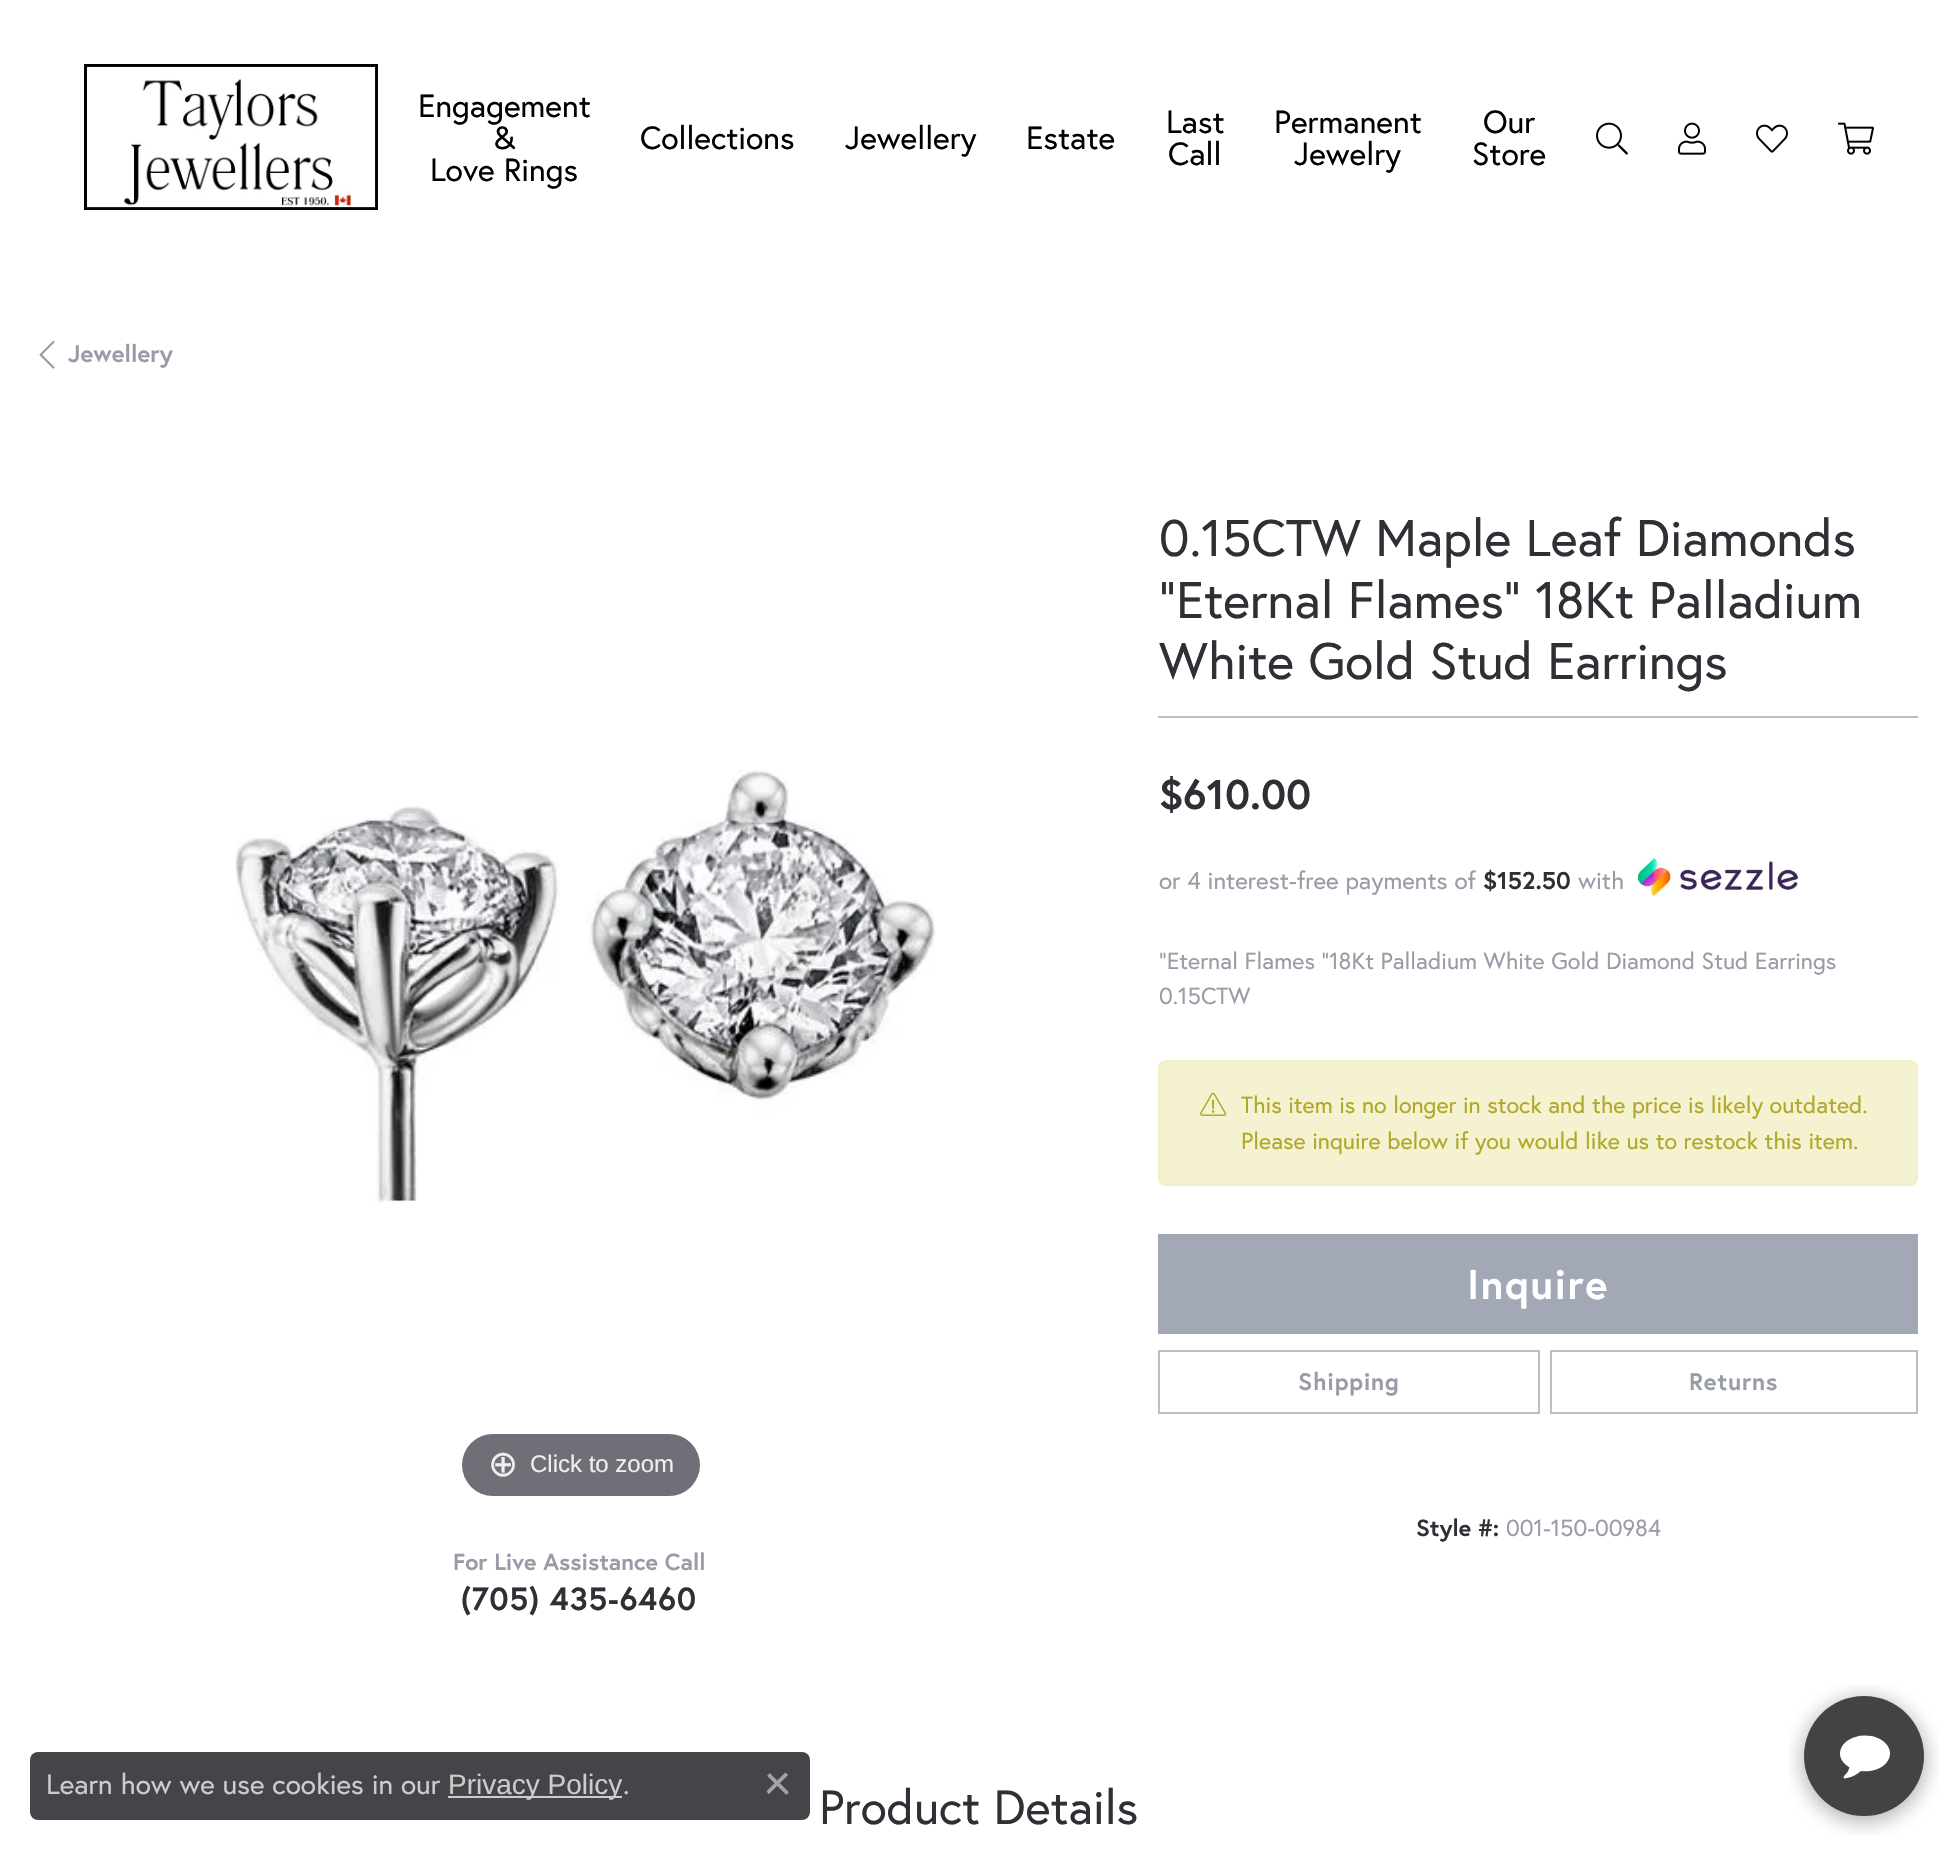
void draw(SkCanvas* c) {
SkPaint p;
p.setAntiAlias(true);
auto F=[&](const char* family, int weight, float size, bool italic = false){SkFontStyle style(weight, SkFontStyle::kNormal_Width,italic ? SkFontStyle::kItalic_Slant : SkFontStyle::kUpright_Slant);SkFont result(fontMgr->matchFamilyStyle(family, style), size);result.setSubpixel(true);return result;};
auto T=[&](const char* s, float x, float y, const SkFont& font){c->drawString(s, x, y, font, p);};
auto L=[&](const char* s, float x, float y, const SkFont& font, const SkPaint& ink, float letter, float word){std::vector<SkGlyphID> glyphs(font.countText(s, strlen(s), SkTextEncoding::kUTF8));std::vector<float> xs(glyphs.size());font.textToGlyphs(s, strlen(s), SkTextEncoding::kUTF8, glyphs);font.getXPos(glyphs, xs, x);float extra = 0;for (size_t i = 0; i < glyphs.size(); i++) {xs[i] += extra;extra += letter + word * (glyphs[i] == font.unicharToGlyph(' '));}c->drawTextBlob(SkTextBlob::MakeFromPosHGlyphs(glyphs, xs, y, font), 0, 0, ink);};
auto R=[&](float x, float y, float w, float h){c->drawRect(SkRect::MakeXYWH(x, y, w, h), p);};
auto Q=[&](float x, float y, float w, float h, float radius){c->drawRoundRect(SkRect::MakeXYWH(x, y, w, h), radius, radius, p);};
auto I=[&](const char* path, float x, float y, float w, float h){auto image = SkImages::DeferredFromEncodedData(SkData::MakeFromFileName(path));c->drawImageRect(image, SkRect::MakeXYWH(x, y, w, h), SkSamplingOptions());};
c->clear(0xffffffff);
I("1.png",84,64,294,146);
auto f1 = F("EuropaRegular",400,32);
p.setColor(0xff000000);
T("Engagement",418,117,f1);
T("&",493,149,f1);
T("Love Rings",430,181,f1);
T("Collections",640,149,f1);
T("Jewellery",845,149,f1);
T("Estate",1026,149,f1);
T("Last",1166,133,f1);
T("Call",1168,165,f1);
T("Permanent",1274,133,f1);
T("Jewelry",1294,165,f1);
T("Our",1483,133,f1);
T("Store",1472,165,f1);
I("2.png",1596,122,32,33);
I("3.png",1678,122,28,33);
I("4.png",1756,124,32,29);
I("5.png",1838,122,36,33);
I("6.png",39,340,16,29);
auto f2 = F("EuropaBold",700,24);
p.setColor(0xff989ca7);
T("Jewellery",68,362,f2);
I("7.png",235,770,701,433);
p.setColor(0xff6f7077);
Q(462,1434,238,62,31);
auto f3 = F("DejaVu Sans",400,36);
p.setColor(0xffeeeeee);
T("⊕",488,1476,f3);
auto f4 = F("Liberation Sans",400,24);
T("Click to zoom",530,1472,f4);
auto f5 = F("EuropaBold",700,23.25);
p.setColor(0xff989ca7);
T("For Live Assistance Call",453,1570,f5);
auto f6 = F("EuropaBold",700,32);
p.setColor(0xff2e3035);
L("(705) 435-6460",461,1610,f6,p,.75,0);
auto f7 = F("EuropaRegular",400,51.4);
T("0.15CTW Maple Leaf Diamonds",1159,556,f7);
T("\"Eternal Flames\" 18Kt Palladium",1159,618,f7);
T("White Gold Stud Earrings",1159,679,f7);
p.setColor(0xffbfbfbf);
R(1158,716,760,2);
auto f8 = F("EuropaBold",700,41.5);
p.setColor(0xff2e3035);
T("$610.00",1159,809,f8);
auto f9 = F("EuropaRegular",400,24.25);
p.setColor(0xff989ca7);
T("or 4 interest-free payments of",1159,889,f9);
auto f10 = F("EuropaBold",700,24.25);
p.setColor(0xff2e3035);
T("$152.50",1483,889,f10);
p.setColor(0xff989ca7);
T("with",1578,889,f9);
I("8.png",1638,858,160,38);
auto f11 = F("EuropaRegular",400,23.25);
T("\"Eternal Flames \"18Kt Palladium White Gold Diamond Stud Earrings",1159,969,f11);
T("0.15CTW",1159,1004,f11);
p.setColor(0xfff4f2d0);
Q(1158,1060,760,126,8);
p.setStroke(true);
p.setStrokeWidth(2);
p.setColor(0x1adbd463);
c->drawRoundRect(SkRect::MakeXYWH(1159,1061,758,124),7,7,p);
I("9.png",1200,1092,27,24);
p.setStroke(false);
p.setColor(0xffb0a829);
T("This item is no longer in stock and the price is likely outdated.",1241,1113,f11);
T("Please inquire below if you would like us to restock this item.",1241,1149,f11);
p.setColor(0xffa3a8b7);
R(1158,1234,760,100);
p.setColor(0xffffffff);
L("Inquire",1467,1299,f8,p,1.5,0);
p.setStroke(true);
p.setColor(0xffbfbfbf);
c->drawRect(SkRect::MakeXYWH(1159,1351,380,62),p);
p.setStroke(false);
p.setColor(0xff989ca7);
L("Shipping",1298,1390,f2,p,.75,0);
p.setStroke(true);
p.setColor(0xffbfbfbf);
c->drawRect(SkRect::MakeXYWH(1551,1351,366,62),p);
p.setStroke(false);
p.setColor(0xff989ca7);
L("Returns",1689,1390,f2,p,.75,0);
p.setColor(0xff2e3035);
T("Style #:",1416,1536,f5);
p.setColor(0xff989ca7);
T("001-150-00984",1506,1536,f11);
auto f12 = F("EuropaRegular",400,48);
p.setColor(0xff2e3035);
T("Product Details",819,1824,f12);
p.setColor(0xff434549);
Q(30,1752,780,68,8);
auto f13 = F("EuropaRegular",400,28);
p.setColor(0xffcccccc);
T("Learn how we use cookies in our",46,1794,f13);
R(448,1796,174,2);
auto f14 = F("Liberation Sans",400,28);
T("Privacy Policy",448,1794,f14);
T(".",623,1794,f13);
I("10.png",766,1772,23,23);
I("11.png",1789,1685,150,150);
}
